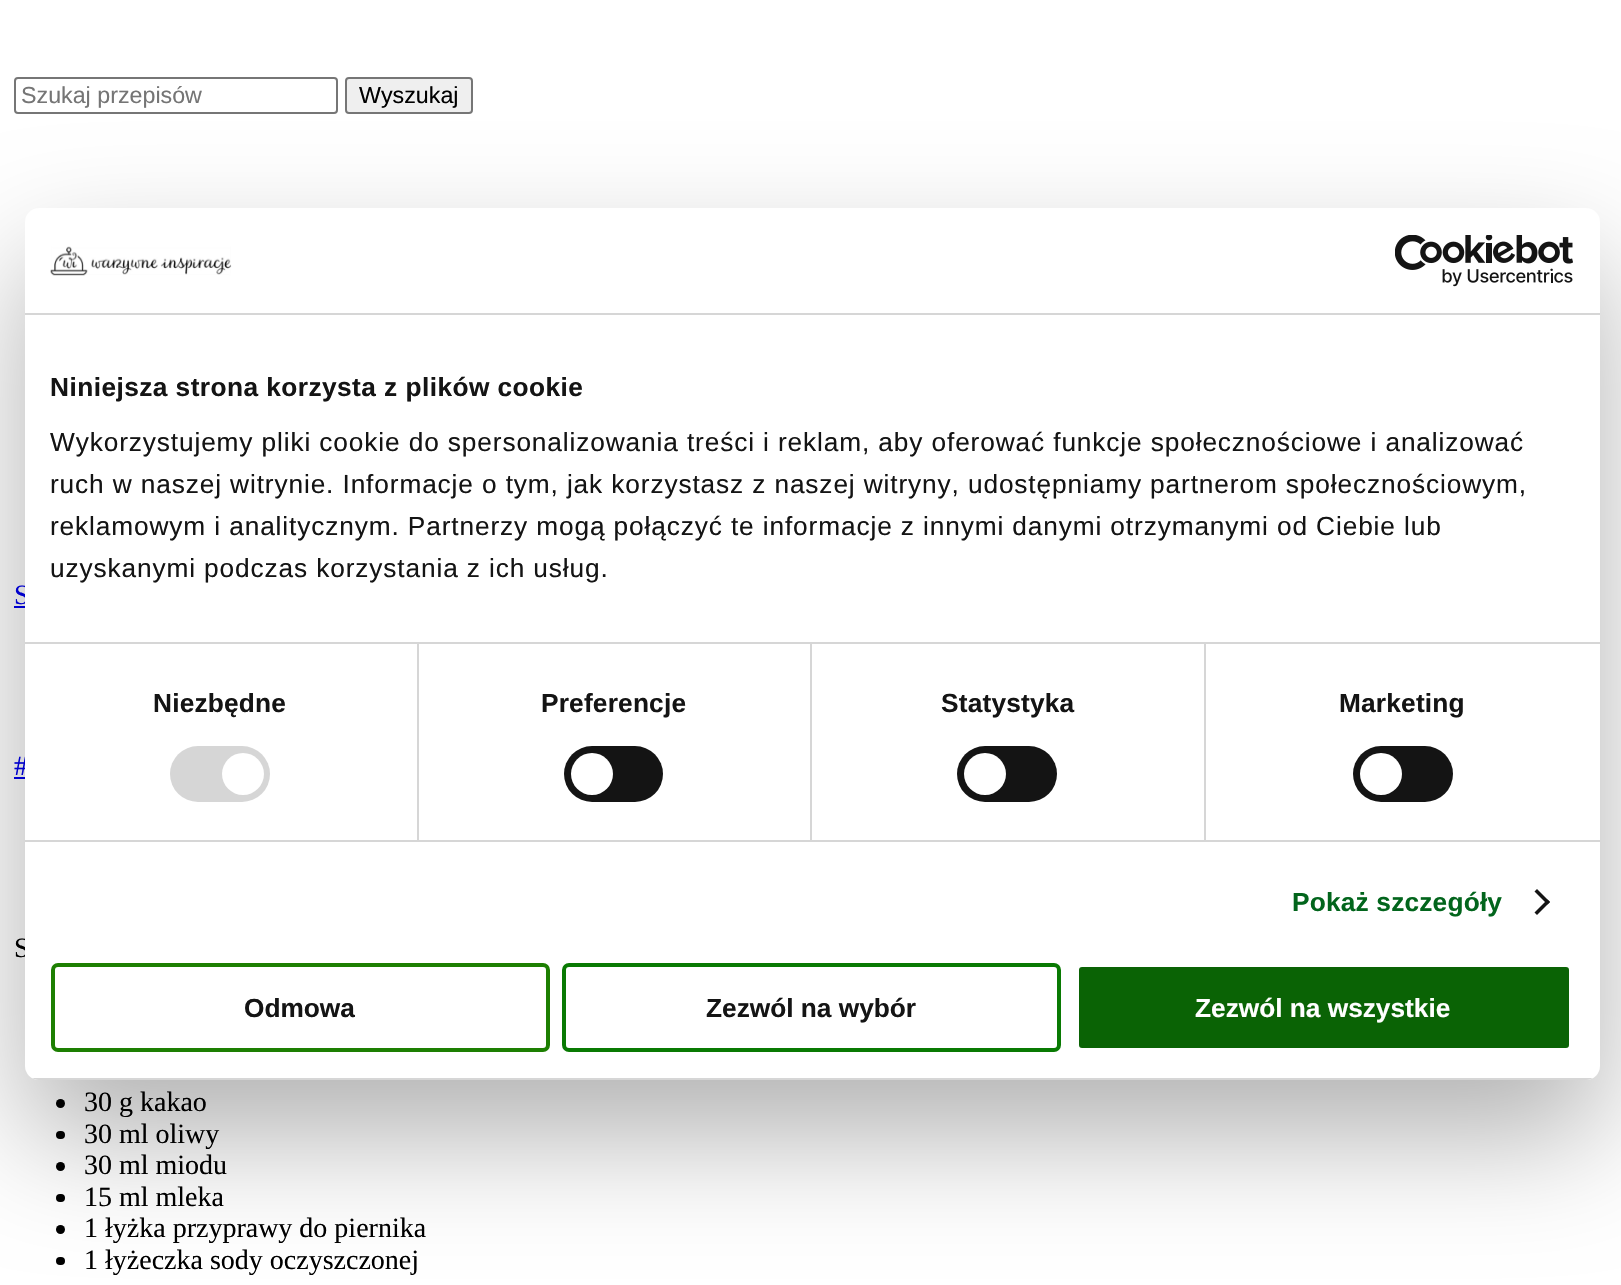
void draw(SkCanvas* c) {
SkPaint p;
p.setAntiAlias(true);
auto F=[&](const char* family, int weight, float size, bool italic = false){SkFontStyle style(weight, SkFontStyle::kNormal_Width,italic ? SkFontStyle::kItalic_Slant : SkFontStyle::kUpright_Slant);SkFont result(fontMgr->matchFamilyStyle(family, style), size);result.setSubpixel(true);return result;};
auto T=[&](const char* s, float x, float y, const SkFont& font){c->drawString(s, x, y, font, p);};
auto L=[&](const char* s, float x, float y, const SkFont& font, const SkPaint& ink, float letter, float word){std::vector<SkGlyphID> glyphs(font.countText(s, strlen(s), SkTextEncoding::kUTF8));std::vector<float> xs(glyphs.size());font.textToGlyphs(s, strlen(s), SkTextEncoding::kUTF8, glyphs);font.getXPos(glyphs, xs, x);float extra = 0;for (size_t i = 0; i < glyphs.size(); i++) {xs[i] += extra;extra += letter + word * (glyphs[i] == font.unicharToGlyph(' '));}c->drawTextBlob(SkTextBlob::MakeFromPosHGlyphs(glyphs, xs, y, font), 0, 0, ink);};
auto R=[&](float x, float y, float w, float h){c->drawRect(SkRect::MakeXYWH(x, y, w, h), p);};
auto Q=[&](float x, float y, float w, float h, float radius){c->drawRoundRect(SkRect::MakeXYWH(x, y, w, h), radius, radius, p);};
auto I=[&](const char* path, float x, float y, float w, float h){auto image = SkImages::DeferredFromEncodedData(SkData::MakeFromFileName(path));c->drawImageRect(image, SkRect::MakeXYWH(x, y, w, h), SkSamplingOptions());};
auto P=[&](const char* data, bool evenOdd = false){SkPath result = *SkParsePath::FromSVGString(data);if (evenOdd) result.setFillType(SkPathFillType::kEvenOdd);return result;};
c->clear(0xffffffff);
p.setStroke(true);
p.setStrokeWidth(2);
p.setColor(0xff767676);
c->drawRoundRect(SkRect::MakeXYWH(15,78,322,35),3,3,p);
auto f1 = F("Liberation Sans",400,23.25);
p.setStroke(false);
p.setColor(0xff757575);
T("Szukaj przepisów",21,103,f1);
p.setColor(0xffefefef);
c->drawRoundRect(SkRect::MakeXYWH(346,78,126,35),3,3,p);
p.setStroke(true);
p.setColor(0xff767676);
c->drawRoundRect(SkRect::MakeXYWH(346,78,126,35),3,3,p);
p.setStroke(false);
p.setColor(0xff000000);
T("Wyszukaj",359,103,f1);
auto f2 = F("Liberation Serif",400,28);
p.setColor(0xff0000ee);
T("S",14,604,f2);
R(14,606,11,2);
T("#",14,775,f2);
R(14,777,14,2);
p.setColor(0xff000000);
T("S",14,957,f2);
c->drawCircle(60.5,1103.5,4.5,p);
T("30 g kakao",84,1111,f2);
Q(56,1131,9,8,4);
T("30 ml oliwy",84,1143,f2);
c->drawCircle(60.5,1166.5,4.5,p);
T("30 ml miodu",84,1174,f2);
Q(56,1194,9,8,4);
T("15 ml mleka",84,1206,f2);
c->drawCircle(60.5,1229.5,4.5,p);
T("1 łyżka przyprawy do piernika",84,1237,f2);
Q(56,1257,9,8,4);
T("1 łyżeczka sody oczyszczonej",84,1269,f2);
p.setColor(0x4d000000);
p.setMaskFilter(SkMaskFilter::MakeBlur(kNormal_SkBlurStyle, 59.5));
c->drawRoundRect(SkRect::MakeXYWH(25,264,1575,872),14,14,p);
p.setMaskFilter(nullptr);
p.setColor(0xffffffff);
Q(25,208,1575,872,14);
p.setColor(0xffd6d6d6);
R(25,313,1575,2);
I("1.png",50,246,182,30);
I("2.png",1395,235,178,52);
R(25,642,1575,2);
auto f3 = F("Liberation Sans",700,26.25);
p.setColor(0xff141414);
L("Niniejsza strona korzysta z plików cookie",50,396,f3,p,.45,0);
auto f4 = F("Liberation Sans",400,26.25);
L("Wykorzystujemy pliki cookie do spersonalizowania treści i reklam, aby oferować funkcje społecznościowe i analizować",50,451,f4,p,.88,0);
L("ruch w naszej witrynie. Informacje o tym, jak korzystasz z naszej witryny, udostępniamy partnerom społecznościowym,",50,493,f4,p,.88,0);
L("reklamowym i analitycznym. Partnerzy mogą połączyć te informacje z innymi danymi otrzymanymi od Ciebie lub",50,535,f4,p,.88,0);
L("uzyskanymi podczas korzystania z ich usług.",50,577,f4,p,.88,0);
p.setColor(0xffd6d6d6);
R(25,840,1575,2);
R(417,644,2,196);
p.setColor(0xff141414);
L("Niezbędne",153,712,f3,p,.2,0);
p.setColor(0xffd6d6d6);
Q(170,746,100,56,28);
p.setColor(0xffffffff);
c->drawCircle(243,774,21,p);
p.setColor(0xffd6d6d6);
R(810,644,2,196);
p.setColor(0xff141414);
L("Preferencje",541,712,f3,p,.2,0);
Q(564,746,99,56,28);
p.setColor(0xffffffff);
c->drawCircle(592,774,21,p);
p.setColor(0xffd6d6d6);
R(1204,644,2,196);
p.setColor(0xff141414);
L("Statystyka",941,712,f3,p,.2,0);
Q(957,746,100,56,28);
p.setColor(0xffffffff);
c->drawCircle(985,774,21,p);
p.setColor(0xff141414);
L("Marketing",1339,712,f3,p,.2,0);
Q(1353,746,100,56,28);
p.setColor(0xffffffff);
c->drawCircle(1381,774,21,p);
p.setColor(0xff02651c);
L("Pokaż szczegóły",1292,911,f3,p,.2,0);
p.setColor(0xff141414);
c->drawPath(P("M1537 889l13 13l-2.5 2.5l-13-13z"),p);
c->drawPath(P("M1547.5 899.5l2.5 2.5l-13 13l-2.5-2.5z"),p);
c->save();
c->clipPath(P("M39 208h1547c7.5 0 14 6.5 14 14v844c0 7.5-6.5 14-14 14h-1547c-7.5 0-14-6.5-14-14v-844c0-7.5 6.5-14 14-14z"),true);
p.setColor(0xffd6d6d6);
R(25,1078,1575,2);
c->restore();
p.setStroke(true);
p.setStrokeWidth(4);
p.setColor(0xff1d7f02);
c->drawRoundRect(SkRect::MakeXYWH(53,965,495,85),5,5,p);
p.setStroke(false);
p.setColor(0xff141414);
T("Odmowa",244,1017,f3);
p.setStroke(true);
p.setColor(0xff097a03);
c->drawRoundRect(SkRect::MakeXYWH(564,965,495,85),5,5,p);
p.setStroke(false);
p.setColor(0xff141414);
T("Zezwól na wybór",706,1017,f3);
p.setColor(0xff0a6305);
c->drawRoundRect(SkRect::MakeXYWH(1077,965,494,85),5,5,p);
p.setStroke(true);
p.setColor(0xffffffff);
c->drawRoundRect(SkRect::MakeXYWH(1077,965,494,85),5,5,p);
p.setStroke(false);
T("Zezwól na wszystkie",1195,1017,f3);
}
